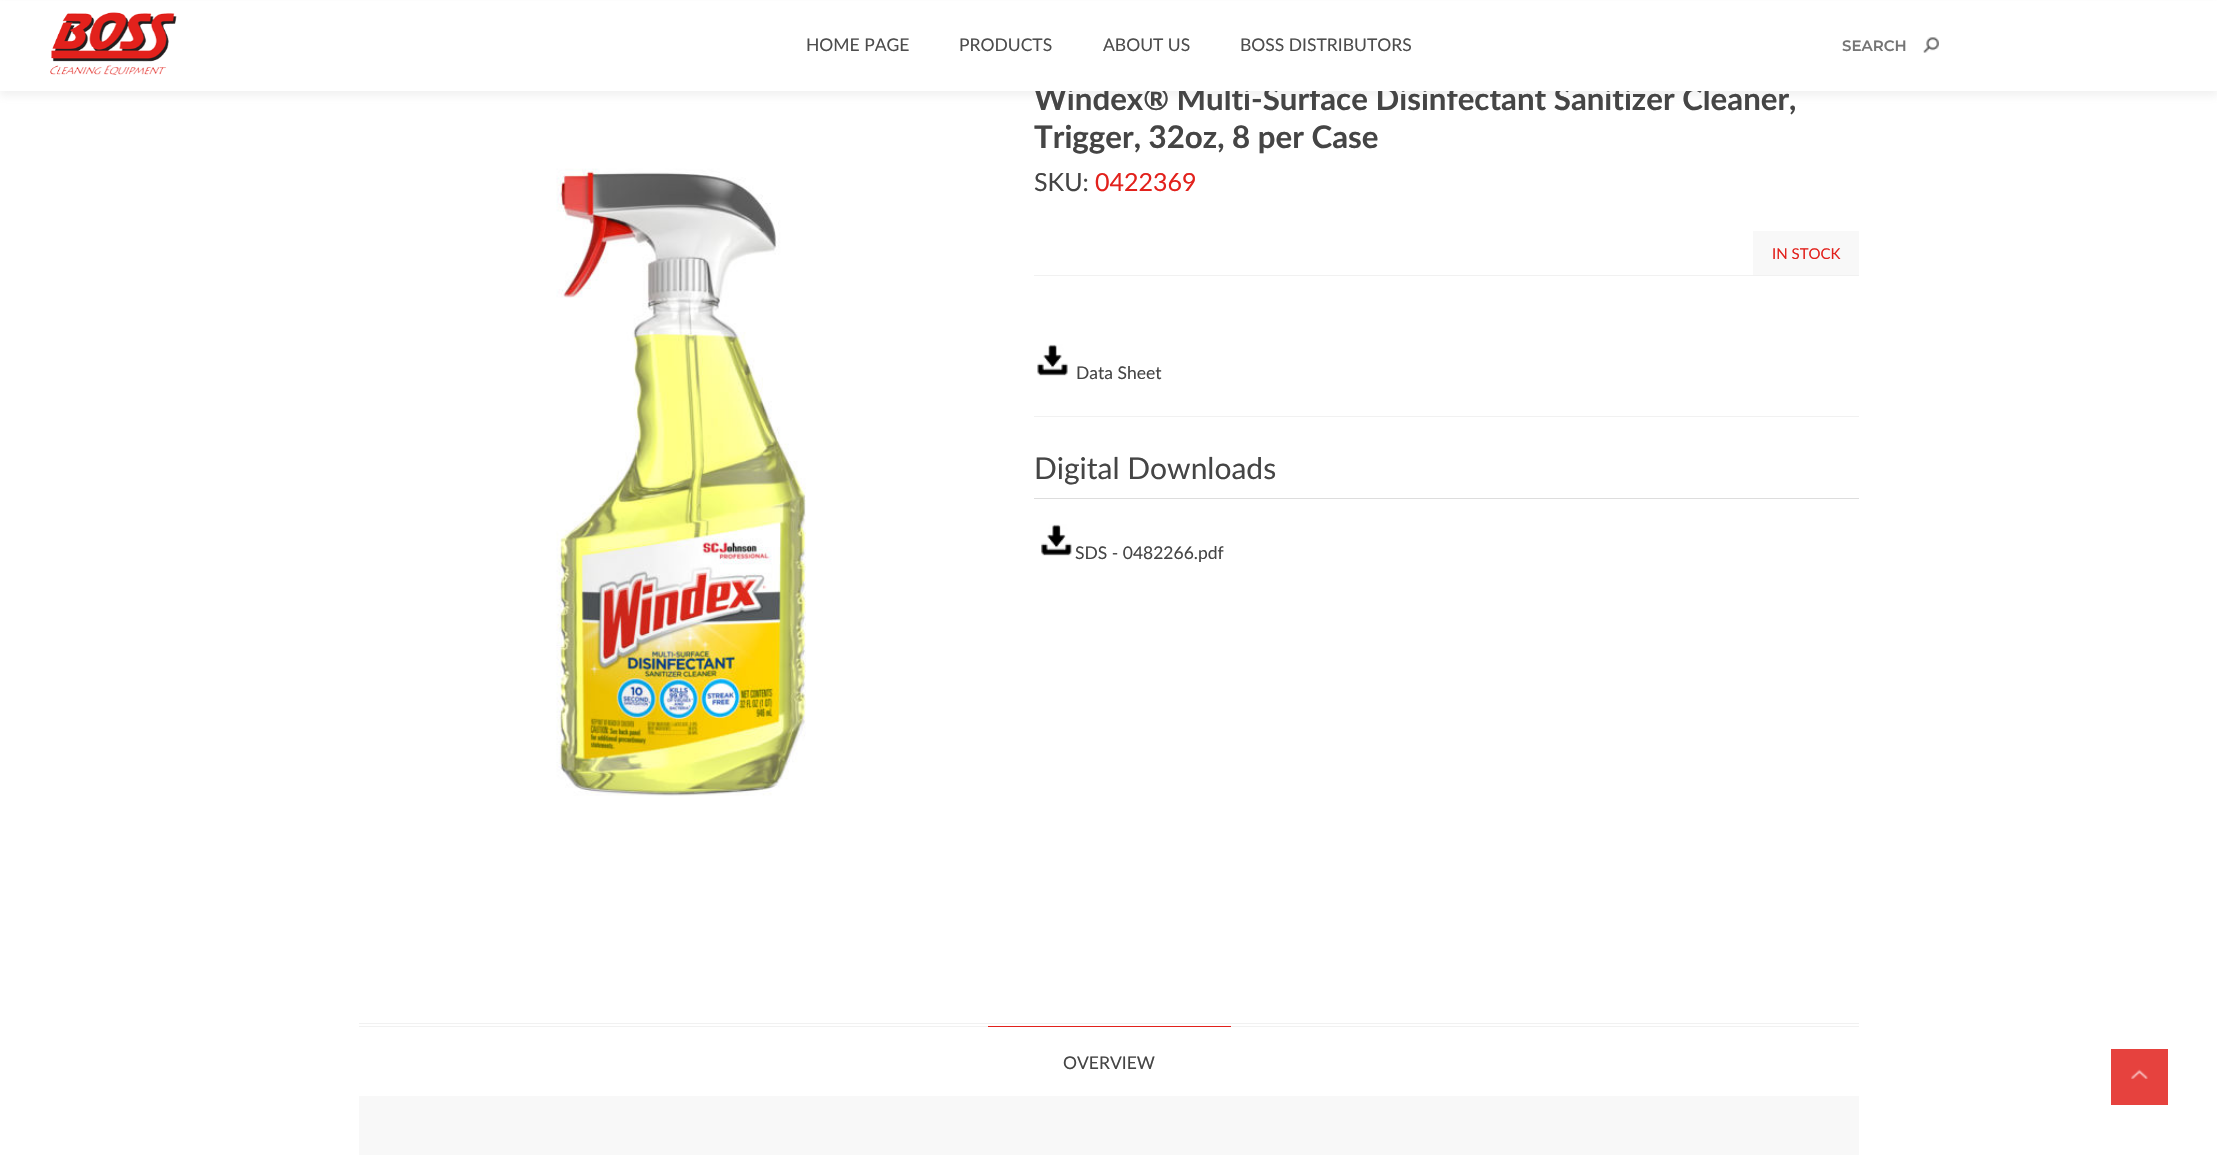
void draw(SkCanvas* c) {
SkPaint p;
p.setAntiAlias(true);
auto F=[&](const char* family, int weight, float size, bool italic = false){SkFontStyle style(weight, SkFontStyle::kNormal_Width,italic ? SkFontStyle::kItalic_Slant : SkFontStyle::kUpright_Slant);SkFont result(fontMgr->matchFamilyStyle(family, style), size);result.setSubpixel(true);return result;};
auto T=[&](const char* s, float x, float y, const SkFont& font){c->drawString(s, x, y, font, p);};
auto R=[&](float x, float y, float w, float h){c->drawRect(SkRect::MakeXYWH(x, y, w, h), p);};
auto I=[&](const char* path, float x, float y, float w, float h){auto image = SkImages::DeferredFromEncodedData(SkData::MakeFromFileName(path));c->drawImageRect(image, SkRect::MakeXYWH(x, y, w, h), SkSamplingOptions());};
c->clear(0xffffffff);
p.setColor(0x21969696);
p.setMaskFilter(SkMaskFilter::MakeBlur(kNormal_SkBlurStyle, 4));
c->drawRect(SkRect::MakeXYWH(0,5,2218,91),p);
p.setMaskFilter(nullptr);
auto f1 = F("Lato",700,31.25);
p.setColor(0xff454545);
T("Windex® Multi-Surface Disinfectant Sanitizer Cleaner,",1034,110,f1);
p.setColor(0xffffffff);
R(0,1,2217,90);
I("1.png",50,12,127,63);
auto f2 = F("Lato",400,17.5);
p.setColor(0xff4d4d4d);
T("HOME PAGE",806,51,f2);
T("PRODUCTS",959,51,f2);
T("ABOUT US",1103,51,f2);
T("BOSS DISTRIBUTORS",1240,51,f2);
auto f3 = F("Montserrat",600,15);
p.setColor(0xff757575);
T("SEARCH",1842,51,f3);
I("2.png",1923,37,16,16);
I("3.png",556,168,250,628);
p.setColor(0xff454545);
T("Trigger, 32oz, 8 per Case",1034,148,f1);
auto f4 = F("Lato",400,25);
T("SKU:",1034,191,f4);
p.setColor(0xffe2211c);
T("0422369",1095,191,f4);
p.setColor(0xfff1f1f1);
R(1034,275,825,1);
p.setColor(0xfff8f8f8);
R(1753,231,106,44);
auto f5 = F("Lato",400,15);
p.setColor(0xffe2211c);
T("IN STOCK",1772,259,f5);
p.setColor(0xfff1f1f1);
R(1034,416,825,1);
I("4.png",1037,344,31,32);
p.setColor(0xff454545);
T("Data Sheet",1076,379,f2);
p.setColor(0xffdddddd);
R(1034,498,825,1);
auto f6 = F("Lato",400,30);
p.setColor(0xff454545);
T("Digital Downloads",1034,479,f6);
I("5.png",1041,524,31,32);
T("SDS - 0482266.pdf",1075,559,f2);
p.setColor(0xfff1f1f1);
R(359,1023,1500,1);
R(359,1026,1500,1);
p.setColor(0xffe2211c);
R(988,1026,243,1);
p.setColor(0xff454545);
T("OVERVIEW",1063,1069,f2);
p.setColor(0xfff8f8f8);
R(359,1096,1500,59);
p.setColor(0xffe6423e);
R(2111,1049,57,56);
I("6.png",2131,1069,17,10);
}
